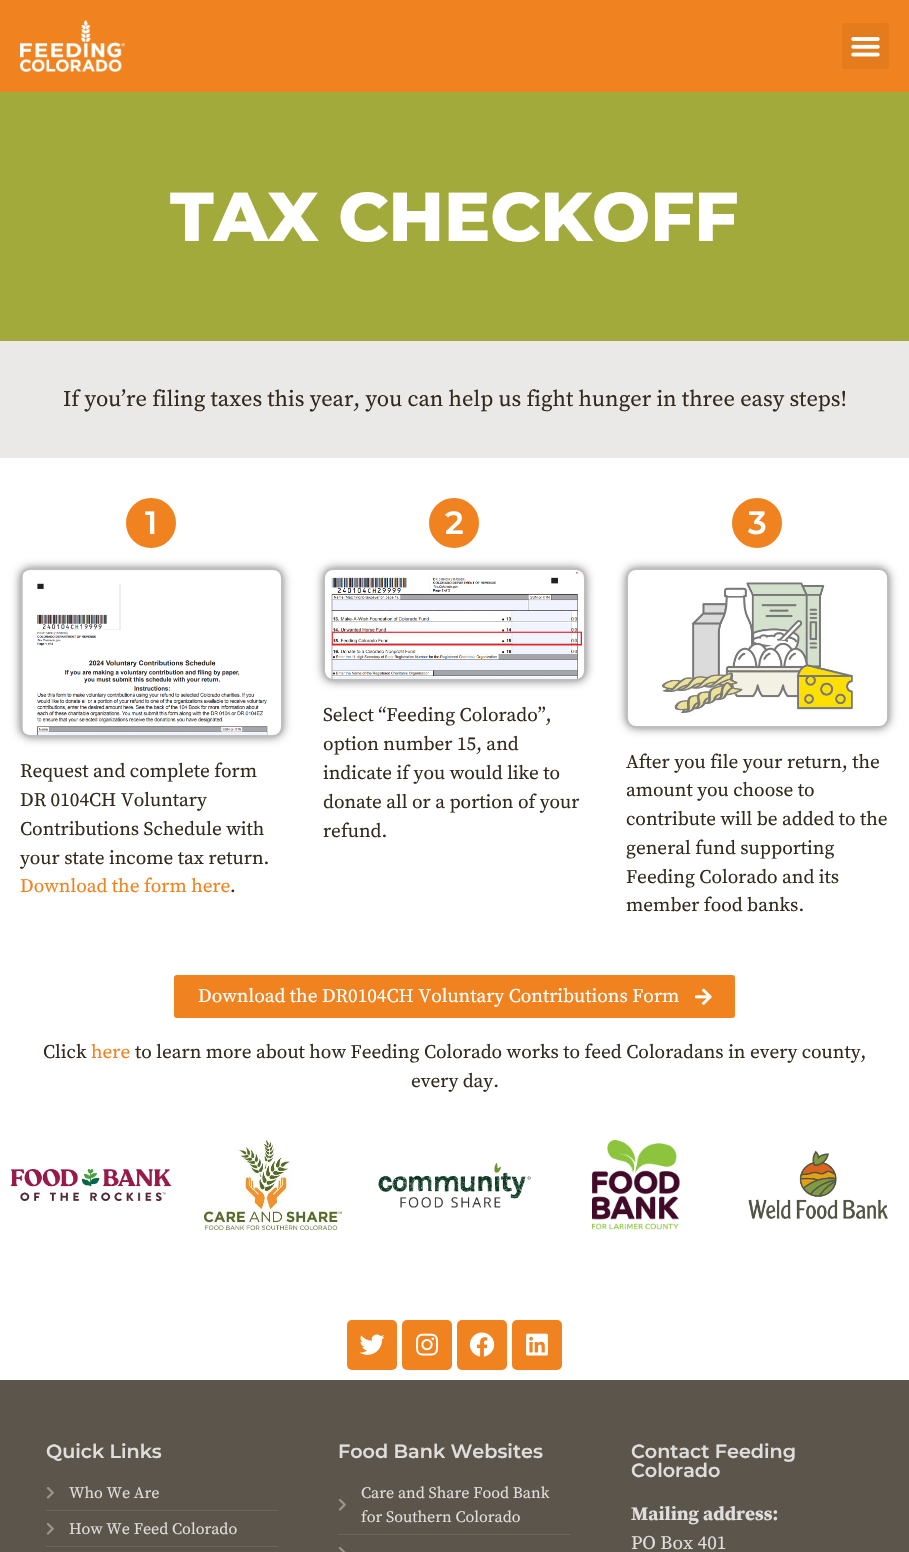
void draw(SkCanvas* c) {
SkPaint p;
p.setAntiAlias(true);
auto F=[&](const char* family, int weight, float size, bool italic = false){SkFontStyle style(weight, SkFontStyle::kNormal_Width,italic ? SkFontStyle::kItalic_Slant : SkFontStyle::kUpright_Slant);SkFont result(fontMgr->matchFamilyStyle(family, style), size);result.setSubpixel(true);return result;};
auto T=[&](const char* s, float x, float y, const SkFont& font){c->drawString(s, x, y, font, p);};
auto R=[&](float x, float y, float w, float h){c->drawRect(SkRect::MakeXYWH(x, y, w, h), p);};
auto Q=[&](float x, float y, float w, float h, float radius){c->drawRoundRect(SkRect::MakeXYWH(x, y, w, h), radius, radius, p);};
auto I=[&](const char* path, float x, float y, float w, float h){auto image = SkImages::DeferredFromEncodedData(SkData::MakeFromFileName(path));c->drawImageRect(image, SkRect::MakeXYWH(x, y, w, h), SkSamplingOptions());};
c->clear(0xffffffff);
p.setColor(0xfff08220);
R(0,0,909,92);
I("1.png",20,20,105,52);
p.setColor(0xffe47c1e);
Q(842,23,47,46,3);
I("2.png",851,37,29,20);
p.setColor(0xffa1aa3a);
R(0,92,909,249);
auto f1 = F("Montserrat",800,68.75);
p.setColor(0xffffffff);
T("TAX CHECKOFF",170,241,f1);
p.setColor(0xffeae9e8);
R(0,341,909,117);
auto f2 = F("Source Serif Pro",400,22.4);
p.setColor(0xff332a1d);
T("If you’re filing taxes this year, you can help us fight hunger in three easy steps!",63,406,f2);
p.setColor(0xfff08220);
c->drawCircle(151,523,23.5,p);
p.setStroke(true);
p.setStrokeWidth(3);
c->drawCircle(151,523,23.5,p);
auto f3 = F("Montserrat",600,32);
p.setStroke(false);
p.setColor(0xffffffff);
T("1",145,534,f3);
p.setColor(0x80000000);
p.setMaskFilter(SkMaskFilter::MakeBlur(kNormal_SkBlurStyle, 5));
c->drawRoundRect(SkRect::MakeXYWH(20,568,263,169),10,10,p);
p.setMaskFilter(nullptr);
p.setStroke(true);
p.setStrokeWidth(2);
p.setColor(0xffbebebe);
c->drawRoundRect(SkRect::MakeXYWH(21,569,261,167),9,9,p);
I("3.png",22,570,259,165);
auto f4 = F("Source Serif Pro",400,19.2);
p.setStroke(false);
p.setColor(0xff332a1d);
T("Request and complete form",20,777,f4);
T("DR 0104CH Voluntary",20,806,f4);
T("Contributions Schedule with",20,835,f4);
T("your state income tax return.",20,864,f4);
p.setColor(0xfff08220);
T("Download the form here",20,892,f4);
p.setColor(0xff332a1d);
T(".",230,892,f4);
p.setColor(0xfff08220);
c->drawCircle(454,523,23.5,p);
p.setStroke(true);
p.setStrokeWidth(3);
c->drawCircle(454,523,23.5,p);
p.setStroke(false);
p.setColor(0xffffffff);
T("2",445,534,f3);
p.setColor(0x80000000);
p.setMaskFilter(SkMaskFilter::MakeBlur(kNormal_SkBlurStyle, 5));
c->drawRoundRect(SkRect::MakeXYWH(323,568,263,113),10,10,p);
p.setMaskFilter(nullptr);
p.setStroke(true);
p.setStrokeWidth(2);
p.setColor(0xffbebebe);
c->drawRoundRect(SkRect::MakeXYWH(324,569,261,111),9,9,p);
I("4.png",325,570,259,109);
p.setStroke(false);
p.setColor(0xff332a1d);
T("Select “Feeding Colorado”,",323,721,f4);
T("option number 15, and",323,750,f4);
T("indicate if you would like to",323,779,f4);
T("donate all or a portion of your",323,808,f4);
T("refund.",323,837,f4);
p.setColor(0xfff08220);
c->drawCircle(757,523,23.5,p);
p.setStroke(true);
p.setStrokeWidth(3);
c->drawCircle(757,523,23.5,p);
p.setStroke(false);
p.setColor(0xffffffff);
T("3",748,534,f3);
p.setColor(0x80000000);
p.setMaskFilter(SkMaskFilter::MakeBlur(kNormal_SkBlurStyle, 5));
c->drawRoundRect(SkRect::MakeXYWH(626,568,263,160),10,10,p);
p.setMaskFilter(nullptr);
p.setStroke(true);
p.setStrokeWidth(2);
p.setColor(0xffbebebe);
c->drawRoundRect(SkRect::MakeXYWH(627,569,261,158),9,9,p);
I("5.png",628,570,259,156);
p.setStroke(false);
p.setColor(0xff332a1d);
T("After you file your return, the",626,768,f4);
T("amount you choose to",626,796,f4);
T("contribute will be added to the",626,825,f4);
T("general fund supporting",626,854,f4);
T("Feeding Colorado and its",626,883,f4);
T("member food banks.",626,911,f4);
p.setColor(0xfff08220);
Q(174,975,561,43,3);
p.setColor(0xffffffff);
T("Download the DR0104CH Voluntary Contributions Form",198,1002,f4);
I("6.png",695,988,17,17);
p.setColor(0xff332a1d);
T("Click",43,1058,f4);
p.setColor(0xfff08220);
T("here",91,1058,f4);
p.setColor(0xff332a1d);
T("to learn more about how Feeding Colorado works to feed Coloradans in every county,",135,1058,f4);
T("every day.",411,1087,f4);
I("7.png",10,1169,162,32);
I("8.png",204,1140,138,90);
I("9.png",378,1163,153,45);
I("10.png",592,1140,88,90);
I("11.png",748,1150,140,70);
p.setColor(0xfff08220);
Q(347,1320,50,50,5);
I("12.png",359,1334,26,21);
Q(402,1320,50,50,5);
I("13.png",416,1333,22,23);
Q(457,1320,50,50,5);
I("14.png",469,1332,26,25);
Q(512,1320,50,50,5);
I("15.png",526,1333,22,23);
p.setColor(0xff5c554b);
R(0,1380,909,172);
auto f5 = F("Montserrat",600,19.2);
p.setColor(0xffdfdedd);
T("Quick Links",46,1458,f5);
I("16.png",46,1487,8,12);
auto f6 = F("Source Serif Pro",400,16);
T("Who We Are",69,1498,f6);
p.setColor(0xff6b655d);
R(46,1510,232,1);
I("16.png",46,1523,8,12);
p.setColor(0xffdfdedd);
T("How We Feed Colorado",69,1534,f6);
p.setColor(0xff6b655d);
R(46,1546,232,1);
p.setColor(0xffdfdedd);
T("Food Bank Websites",338,1458,f5);
I("16.png",338,1499,8,12);
T("Care and Share Food Bank",361,1498,f6);
T("for Southern Colorado",361,1522,f6);
p.setColor(0xff6b655d);
R(338,1534,233,1);
I("17.png",338,1547,8,5);
p.setColor(0xffdfdedd);
T("Contact Feeding",631,1458,f5);
T("Colorado",631,1477,f5);
auto f7 = F("Source Serif Pro",700,19.2);
T("Mailing address:",631,1520,f7);
T("PO Box 401",631,1549,f4);
}
